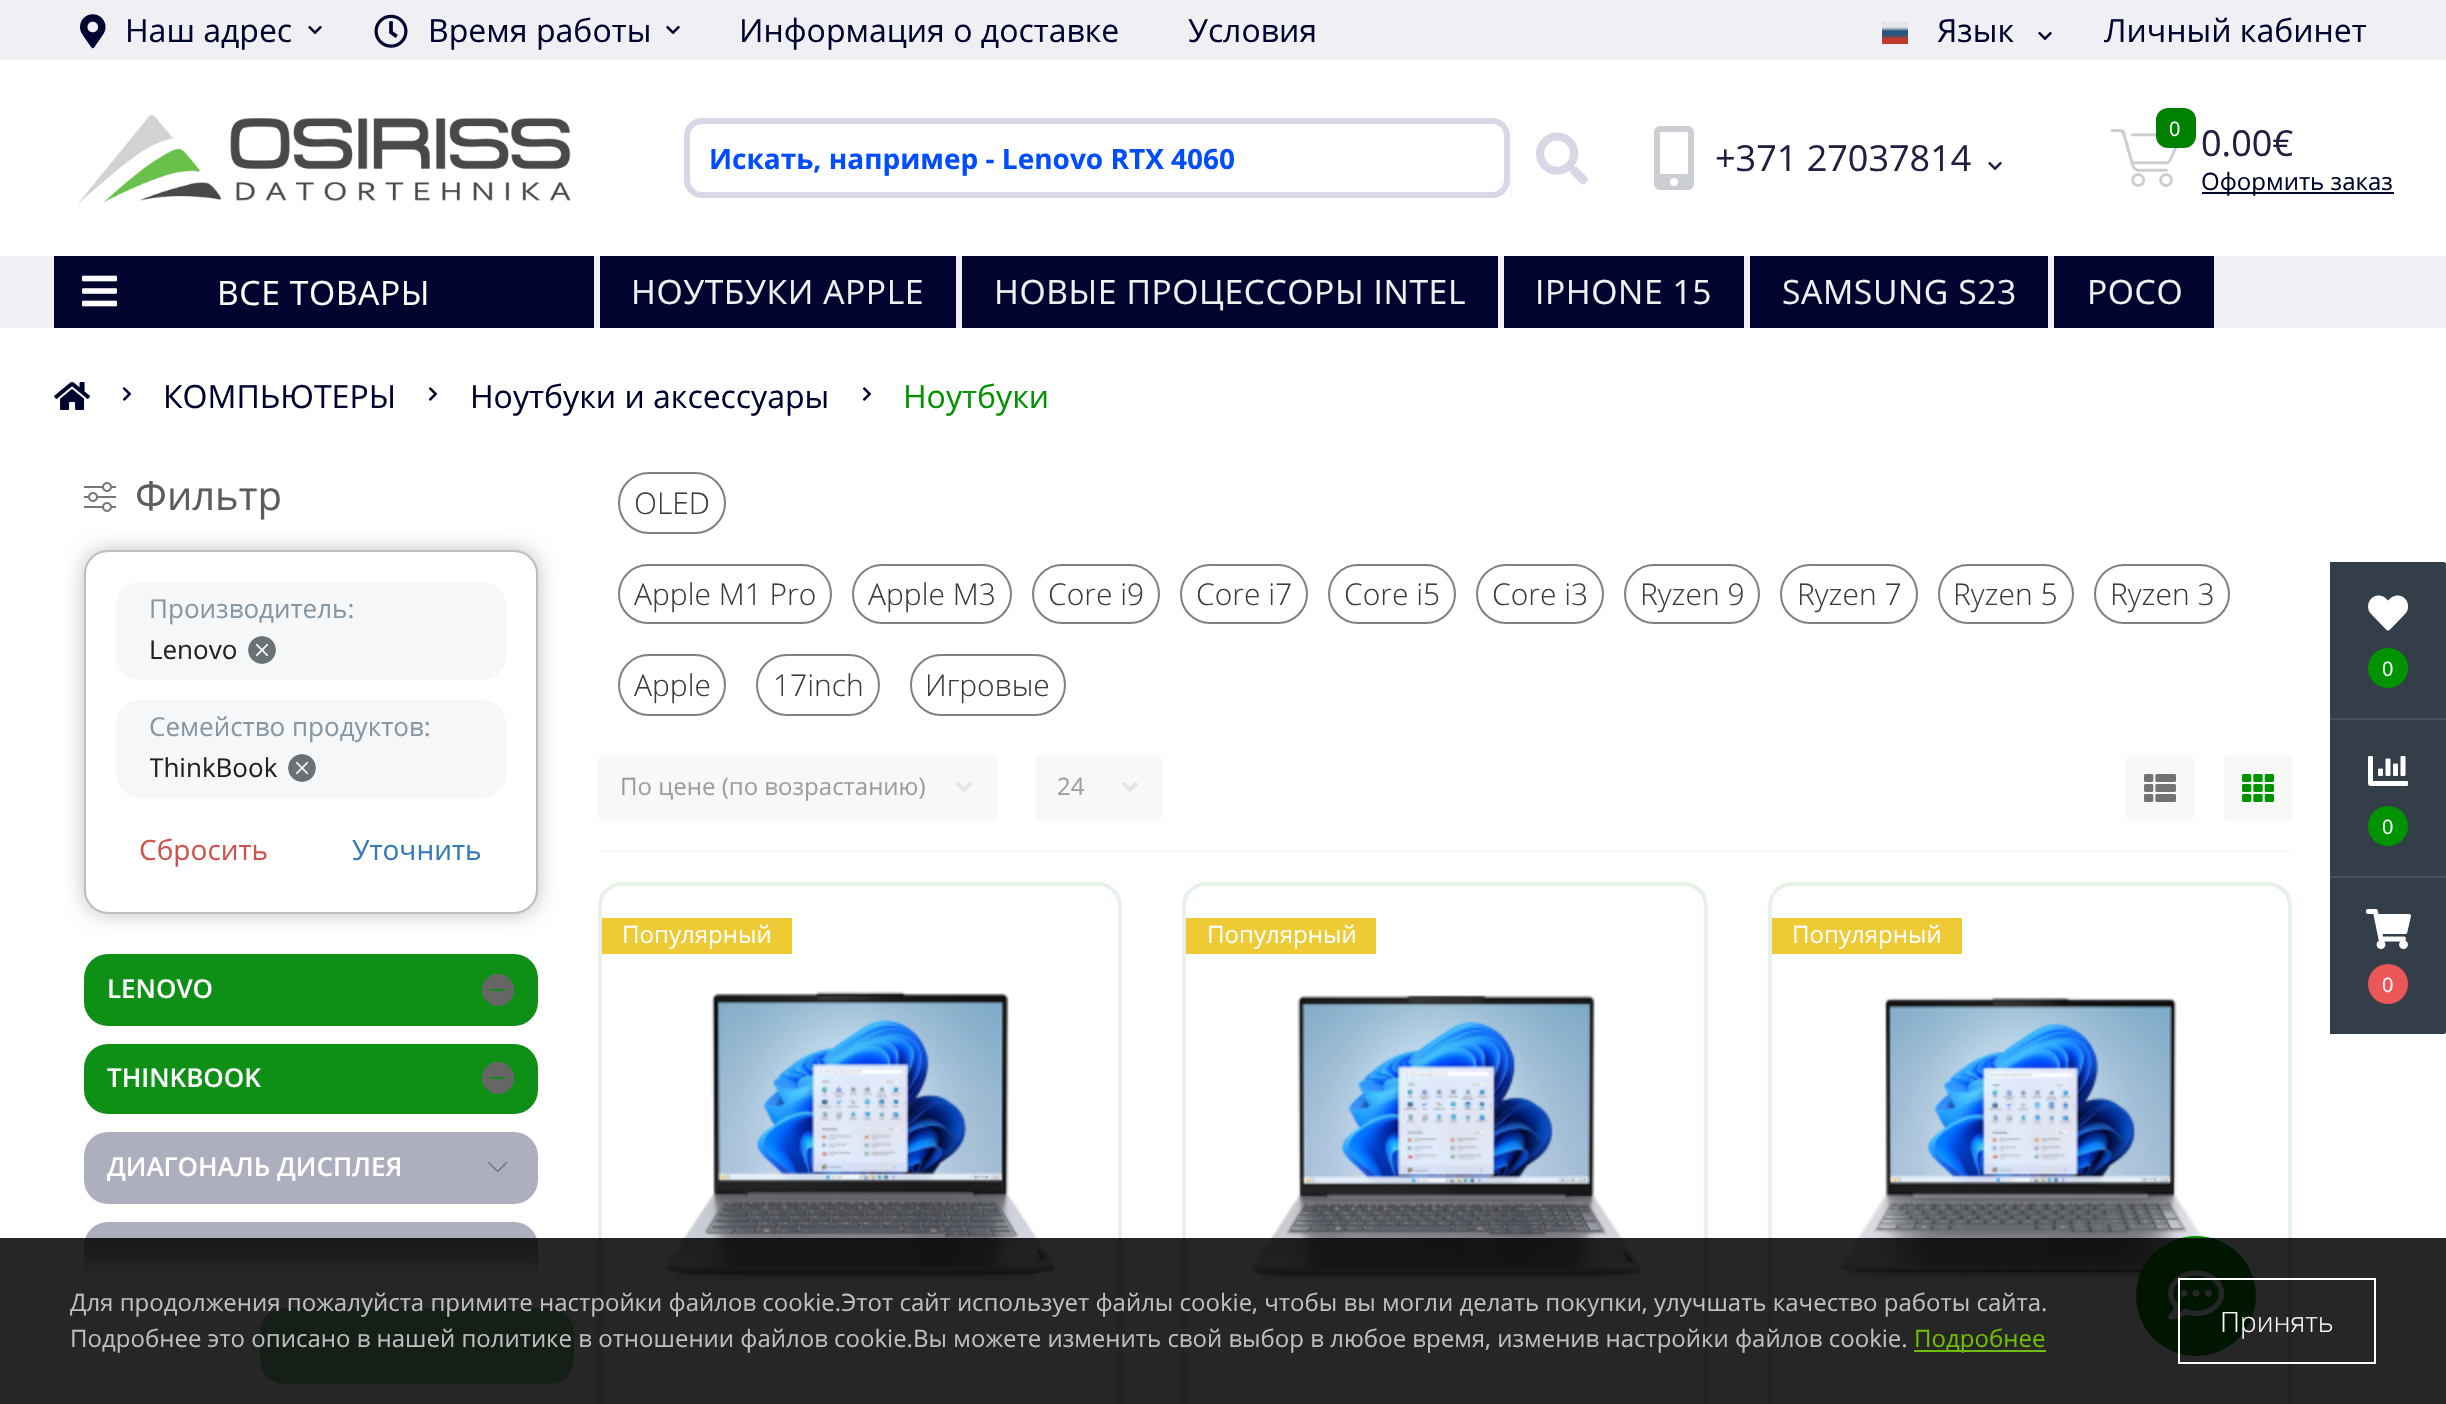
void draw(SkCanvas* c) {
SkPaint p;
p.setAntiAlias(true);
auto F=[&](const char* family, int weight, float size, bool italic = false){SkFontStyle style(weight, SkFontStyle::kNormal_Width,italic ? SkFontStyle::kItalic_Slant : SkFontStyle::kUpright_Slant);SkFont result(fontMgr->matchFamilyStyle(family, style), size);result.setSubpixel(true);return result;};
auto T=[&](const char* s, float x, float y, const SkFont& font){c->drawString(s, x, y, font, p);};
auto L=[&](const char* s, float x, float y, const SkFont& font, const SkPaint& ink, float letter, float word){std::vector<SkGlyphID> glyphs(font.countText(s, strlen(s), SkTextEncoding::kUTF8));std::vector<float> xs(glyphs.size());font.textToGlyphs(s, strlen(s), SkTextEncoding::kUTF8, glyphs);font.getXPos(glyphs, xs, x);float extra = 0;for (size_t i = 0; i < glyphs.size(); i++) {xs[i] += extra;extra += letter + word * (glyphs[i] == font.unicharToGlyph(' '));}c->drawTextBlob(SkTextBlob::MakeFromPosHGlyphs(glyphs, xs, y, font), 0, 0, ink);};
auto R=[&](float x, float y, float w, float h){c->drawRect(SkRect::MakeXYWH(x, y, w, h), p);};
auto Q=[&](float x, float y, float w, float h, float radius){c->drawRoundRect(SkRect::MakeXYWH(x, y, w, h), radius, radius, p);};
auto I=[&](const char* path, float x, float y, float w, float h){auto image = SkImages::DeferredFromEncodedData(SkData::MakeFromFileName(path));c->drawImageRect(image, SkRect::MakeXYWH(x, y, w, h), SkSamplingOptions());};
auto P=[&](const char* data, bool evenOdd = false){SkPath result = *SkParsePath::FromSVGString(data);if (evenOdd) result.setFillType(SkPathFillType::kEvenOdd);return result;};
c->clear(0xffffffff);
p.setColor(0xfff0f0f4);
R(0,0,2446,60);
I("1.png",80,14,26,35);
auto f1 = F("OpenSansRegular",400,32);
p.setColor(0xff00042e);
T("Наш адрес",125,42,f1);
I("2.png",308,25,14,10);
I("3.png",374,14,34,34);
T("Время работы",428,42,f1);
I("2.png",666,25,14,10);
T("Информация о доставке",739,42,f1);
T("Условия",1188,42,f1);
I("4.png",1882,22,26,22);
T("Язык",1937,42,f1);
I("2.png",2038,31,14,10);
T("Личный кабинет",2104,42,f1);
I("5.png",78,115,493,89);
p.setStroke(true);
p.setStrokeWidth(6);
p.setColor(0xffd8d7e5);
c->drawRoundRect(SkRect::MakeXYWH(687,121,820,74),15,15,p);
auto f2 = F("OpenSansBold",700,28);
p.setStroke(false);
p.setColor(0xff004cff);
T("Искать, например - Lenovo RTX 4060",709,169,f2);
p.setColor(0xfff9f9f9);
c->drawPath(P("M1510 198v-80l2 2v76z"),p);
I("6.png",1536,132,52,53);
I("7.png",1654,126,40,64);
auto f3 = F("OpenSansRegular",400,36);
p.setColor(0xff221f41);
T("+371 27037814",1715,171,f3);
I("8.png",1988,161,14,10);
I("9.png",2110,129,68,58);
p.setColor(0xff008000);
Q(2156,108,40,40,12);
auto f4 = F("OpenSansRegular",400,20);
p.setColor(0xffffffff);
T("0",2169,136,f4);
p.setColor(0xff221f41);
T("0.00€",2201,156,f3);
p.setColor(0xff00042e);
R(2202,192,192,2);
auto f5 = F("OpenSansRegular",400,24);
T("Оформить заказ",2201,190,f5);
p.setColor(0xfff0f0f4);
R(0,256,2446,72);
p.setColor(0xff00042e);
R(54,256,540,72);
I("10.png",82,275,35,32);
auto f6 = F("OpenSansRegular",400,33.6);
p.setColor(0xffffffff);
L("ВСЕ ТОВАРЫ",217,305,f6,p,.6,0);
p.setColor(0xff00042e);
R(600,256,356,72);
p.setColor(0xfff0f0f0);
L("НОУТБУКИ APPLE",631,304,f6,p,.6,0);
p.setColor(0xff00042e);
R(962,256,536,72);
p.setColor(0xfff0f0f0);
L("НОВЫЕ ПРОЦЕССОРЫ INTEL",994,304,f6,p,.6,0);
p.setColor(0xff00042e);
R(1504,256,240,72);
p.setColor(0xfff0f0f0);
L("IPHONE 15",1535,304,f6,p,.6,0);
p.setColor(0xff00042e);
R(1750,256,298,72);
p.setColor(0xfff0f0f0);
L("SAMSUNG S23",1782,304,f6,p,.6,0);
p.setColor(0xff00042e);
R(2054,256,160,72);
p.setColor(0xfff0f0f0);
L("POCO",2087,304,f6,p,.6,0);
I("11.png",54,382,36,28);
I("12.png",122,387,10,14);
p.setColor(0xff00042e);
T("КОМПЬЮТЕРЫ",163,408,f1);
I("12.png",428,387,10,14);
T("Ноутбуки и аксессуары",470,408,f1);
I("12.png",862,387,10,14);
p.setColor(0xff009300);
T("Ноутбуки",903,408,f1);
I("13.png",84,482,32,30);
p.setColor(0x40000000);
p.setMaskFilter(SkMaskFilter::MakeBlur(kNormal_SkBlurStyle, 10));
c->drawRoundRect(SkRect::MakeXYWH(84,550,454,364),24,24,p);
p.setMaskFilter(nullptr);
auto f7 = F("OpenSansRegular",400,40);
p.setColor(0xff5c5c5c);
T("Фильтр",135,510,f7);
p.setColor(0xffffffff);
c->drawRoundRect(SkRect::MakeXYWH(85,551,452,362),23,23,p);
p.setStroke(true);
p.setStrokeWidth(2);
p.setColor(0xffbfbcbc);
c->drawRoundRect(SkRect::MakeXYWH(85,551,452,362),23,23,p);
p.setStroke(false);
p.setColor(0xfff5f7f9);
Q(116,582,390,98,24);
auto f8 = F("OpenSansRegular",400,26);
p.setColor(0xff8596a4);
T("Производитель:",149,618,f8);
p.setColor(0xff222222);
T("Lenovo",149,659,f8);
I("14.png",248,636,28,28);
p.setColor(0xfff5f7f9);
Q(116,700,390,98,24);
p.setColor(0xff8596a4);
T("Семейство продуктов:",149,736,f8);
c->save();
c->clipRect(SkRect::MakeXYWH(150,750,128,38));
p.setColor(0xff222222);
T("ThinkBook",149,777,f8);
c->restore();
I("14.png",288,754,28,28);
auto f9 = F("OpenSansRegular",400,28);
p.setColor(0xffd1524c);
T("Сбросить",139,860,f9);
p.setColor(0xff337ab7);
T("Уточнить",352,860,f9);
p.setColor(0xff0e9017);
Q(84,954,454,72,24);
auto f10 = F("Open Sans",600,26);
p.setColor(0xffffffff);
T("LENOVO",107,998,f10);
I("15.png",482,974,32,32);
p.setColor(0xff0e9017);
Q(84,1044,454,70,24);
p.setColor(0xffffffff);
T("THINKBOOK",107,1087,f10);
I("15.png",482,1062,32,32);
p.setColor(0xffadafbf);
Q(84,1132,454,72,24);
p.setColor(0xffffffff);
T("ДИАГОНАЛЬ ДИСПЛЕЯ",107,1176,f10);
I("16.png",487,1161,21,12);
p.setColor(0xffadafbf);
Q(84,1222,454,70,24);
I("16.png",487,1251,21,12);
p.setColor(0xffffffff);
p.setMaskFilter(SkMaskFilter::MakeBlur(kNormal_SkBlurStyle, 10));
c->drawRect(SkRect::MakeXYWH(44,1268,494,116),p);
p.setMaskFilter(nullptr);
R(515,1288,12,3);
p.setStroke(true);
p.setStrokeWidth(4);
p.setColor(0xffe5f2e5);
c->drawRoundRect(SkRect::MakeXYWH(600,884,520,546),22,22,p);
c->save();
c->clipPath(P("M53 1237h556v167h-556zm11 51h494v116h-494z",true),true);
p.setStroke(false);
p.setColor(0xffffffff);
p.setMaskFilter(SkMaskFilter::MakeBlur(kNormal_SkBlurStyle, 10));
c->drawRect(SkRect::MakeXYWH(84,1268,494,116),p);
p.setMaskFilter(nullptr);
c->restore();
p.setColor(0xff93cd97);
Q(260,1308,314,76,24);
p.setStroke(true);
p.setStrokeWidth(2);
p.setColor(0xff808080);
c->drawRoundRect(SkRect::MakeXYWH(619,473,106,60),30,30,p);
auto f11 = F("Open Sans",300,30);
p.setStroke(false);
p.setColor(0xff3a3c40);
T("OLED",634,514,f11);
p.setStroke(true);
p.setColor(0xff808080);
c->drawRoundRect(SkRect::MakeXYWH(619,565,212,58),29,29,p);
p.setStroke(false);
p.setColor(0xff3a3c40);
T("Apple M1 Pro",634,605,f11);
p.setStroke(true);
p.setColor(0xff808080);
c->drawRoundRect(SkRect::MakeXYWH(853,565,158,58),29,29,p);
p.setStroke(false);
p.setColor(0xff3a3c40);
T("Apple M3",868,605,f11);
p.setStroke(true);
p.setColor(0xff808080);
c->drawRoundRect(SkRect::MakeXYWH(1033,565,126,58),29,29,p);
p.setStroke(false);
p.setColor(0xff3a3c40);
T("Core i9",1048,605,f11);
p.setStroke(true);
p.setColor(0xff808080);
c->drawRoundRect(SkRect::MakeXYWH(1181,565,126,58),29,29,p);
p.setStroke(false);
p.setColor(0xff3a3c40);
T("Core i7",1196,605,f11);
p.setStroke(true);
p.setColor(0xff808080);
c->drawRoundRect(SkRect::MakeXYWH(1329,565,126,58),29,29,p);
p.setStroke(false);
p.setColor(0xff3a3c40);
T("Core i5",1344,605,f11);
p.setStroke(true);
p.setColor(0xff808080);
c->drawRoundRect(SkRect::MakeXYWH(1477,565,126,58),29,29,p);
p.setStroke(false);
p.setColor(0xff3a3c40);
T("Core i3",1492,605,f11);
p.setStroke(true);
p.setColor(0xff808080);
c->drawRoundRect(SkRect::MakeXYWH(1625,565,134,58),29,29,p);
p.setStroke(false);
p.setColor(0xff3a3c40);
T("Ryzen 9",1640,605,f11);
p.setStroke(true);
p.setColor(0xff808080);
c->drawRoundRect(SkRect::MakeXYWH(1781,565,136,58),29,29,p);
p.setStroke(false);
p.setColor(0xff3a3c40);
T("Ryzen 7",1797,605,f11);
p.setStroke(true);
p.setColor(0xff808080);
c->drawRoundRect(SkRect::MakeXYWH(1939,565,134,58),29,29,p);
p.setStroke(false);
p.setColor(0xff3a3c40);
T("Ryzen 5",1953,605,f11);
p.setStroke(true);
p.setColor(0xff808080);
c->drawRoundRect(SkRect::MakeXYWH(2095,565,134,58),29,29,p);
p.setStroke(false);
p.setColor(0xff3a3c40);
T("Ryzen 3",2110,605,f11);
p.setStroke(true);
p.setColor(0xff808080);
c->drawRoundRect(SkRect::MakeXYWH(619,655,106,60),30,30,p);
p.setStroke(false);
p.setColor(0xff3a3c40);
T("Apple",634,696,f11);
p.setStroke(true);
p.setColor(0xff808080);
c->drawRoundRect(SkRect::MakeXYWH(757,655,122,60),30,30,p);
p.setStroke(false);
p.setColor(0xff3a3c40);
T("17inch",773,696,f11);
p.setStroke(true);
p.setColor(0xff808080);
c->drawRoundRect(SkRect::MakeXYWH(911,655,154,60),30,30,p);
p.setStroke(false);
p.setColor(0xff3a3c40);
T("Игровые",925,696,f11);
p.setColor(0xfffafafa);
R(598,850,1694,2);
p.setColor(0xfff8f8f8);
Q(598,756,400,64,4);
I("17.png",956,782,16,10);
p.setColor(0xff9d9d9d);
T("По цене (по возрастанию)",620,795,f5);
p.setColor(0xfff8f8f8);
Q(1036,756,126,64,4);
I("17.png",1122,782,16,10);
p.setColor(0xff9d9d9d);
T("24",1057,795,f5);
p.setColor(0xfff8f8f8);
Q(2126,756,68,64,4);
I("18.png",2144,774,32,28);
Q(2224,756,68,64,4);
I("19.png",2242,774,32,28);
p.setColor(0xffeeca35);
R(602,918,190,36);
p.setColor(0xffffffff);
T("Популярный",622,943,f5);
I("20.png",665,991,390,291);
p.setStroke(true);
p.setStrokeWidth(4);
p.setColor(0xffe5f2e5);
c->drawRoundRect(SkRect::MakeXYWH(1184,884,522,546),22,22,p);
p.setStroke(false);
p.setColor(0xffeeca35);
R(1186,918,190,36);
p.setColor(0xffffffff);
T("Популярный",1207,943,f5);
I("21.png",1251,995,391,287);
p.setStroke(true);
p.setColor(0xffe5f2e5);
c->drawRoundRect(SkRect::MakeXYWH(1770,884,520,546),22,22,p);
p.setStroke(false);
p.setColor(0xffeeca35);
R(1772,918,190,36);
p.setColor(0xffffffff);
T("Популярный",1792,943,f5);
I("22.png",1839,997,382,283);
p.setColor(0xff343e48);
c->drawPath(P("M2330 562h114c1 0 2 1 2 2v468c0 1-1 2-2 2h-114z"),p);
I("23.png",2368,595,41,36);
p.setColor(0xff009300);
c->drawCircle(2388,668,20,p);
p.setColor(0xffffffff);
T("0",2382,676,f4);
p.setColor(0xff48515a);
R(2330,718,116,2);
I("24.png",2368,756,40,30);
p.setColor(0xff009300);
c->drawCircle(2388,826,20,p);
p.setColor(0xffffffff);
T("0",2382,834,f4);
p.setColor(0xff48515a);
R(2330,876,116,2);
I("25.png",2366,909,45,40);
p.setColor(0xffeb5757);
c->drawCircle(2388,984,20,p);
p.setColor(0xffffffff);
T("0",2382,992,f4);
p.setColor(0xff009300);
c->drawCircle(2196,1296,60,p);
I("26.png",2168,1270,57,50);
p.setColor(0xd9000000);
R(0,1238,2446,166);
p.setColor(0xffbebebe);
T("Для продолжения пожалуйста примите настройки файлов cookie.Этот сайт использует файлы cookie, чтобы вы могли делать покупки, улучшать качество работы сайта.",70,1311,f5);
T("Подробнее это описано в нашей политике в отношении файлов cookie.Вы можете изменить свой выбор в любое время, изменив настройки файлов cookie.",70,1347,f5);
p.setColor(0xff71be00);
R(1914,1350,132,2);
T("Подробнее",1914,1347,f5);
p.setStroke(true);
p.setStrokeWidth(2);
p.setColor(0xffffffff);
c->drawRect(SkRect::MakeXYWH(2179,1279,196,84),p);
auto f12 = F("Open Sans",300,28);
p.setStroke(false);
T("Принять",2220,1332,f12);
}
